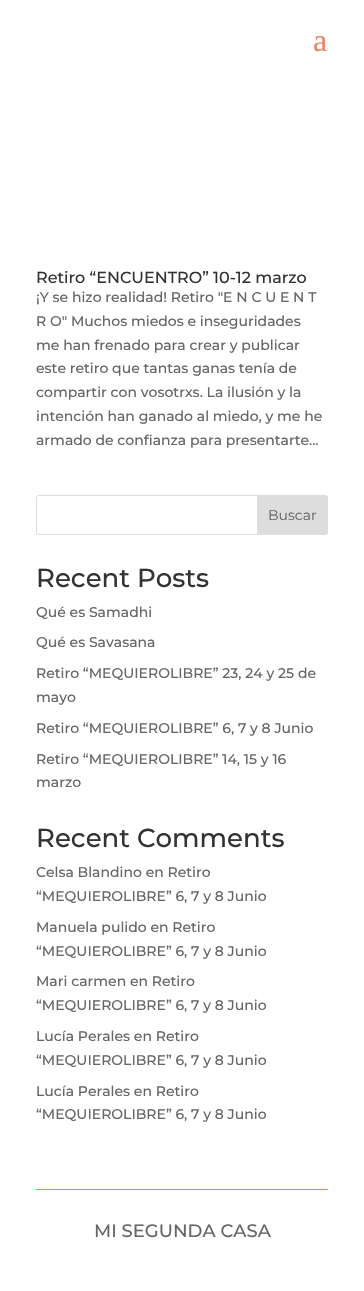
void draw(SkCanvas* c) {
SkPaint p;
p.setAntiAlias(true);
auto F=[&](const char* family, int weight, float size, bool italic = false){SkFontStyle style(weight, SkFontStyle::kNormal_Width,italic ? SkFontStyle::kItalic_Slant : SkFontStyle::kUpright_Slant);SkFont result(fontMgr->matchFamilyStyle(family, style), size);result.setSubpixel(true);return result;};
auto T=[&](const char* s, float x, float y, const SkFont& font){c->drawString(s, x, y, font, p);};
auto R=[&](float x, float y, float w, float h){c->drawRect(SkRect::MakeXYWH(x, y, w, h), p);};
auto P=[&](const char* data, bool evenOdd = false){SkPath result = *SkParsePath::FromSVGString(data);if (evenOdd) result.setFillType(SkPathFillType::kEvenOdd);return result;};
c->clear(0xffffffff);
auto f1 = F("Liberation Serif",400,32);
p.setColor(0xffe58664);
T("a",313,51,f1);
auto f2 = F("Montserrat",500,16);
p.setColor(0xff333333);
T("Retiro “ENCUENTRO” 10-12 marzo",36,283,f2);
auto f3 = F("Montserrat",500,14);
p.setColor(0xff666666);
T("¡Y se hizo realidad! Retiro \"E N C U E N T",36,302,f3);
T("R O\" Muchos miedos e inseguridades",36,326,f3);
T("me han frenado para crear y publicar",36,350,f3);
T("este retiro que tantas ganas tenía de",36,373,f3);
T("compartir con vosotrxs. La ilusión y la",36,397,f3);
T("intención han ganado al miedo, y me he",36,421,f3);
T("armado de confianza para presentarte...",36,445,f3);
p.setStroke(true);
p.setStrokeWidth(1);
p.setColor(0xffdddddd);
c->drawRoundRect(SkRect::MakeXYWH(36.5,495.5,291,39),2.5,2.5,p);
p.setStroke(false);
c->drawPath(P("M257.5 495.5h67.5c1.5 0 2.5 1 2.5 2.5v34c0 1.5-1 2.5-2.5 2.5h-67.5z"),p);
p.setStroke(true);
c->drawPath(P("M257.5 495.5h67.5c1.5 0 2.5 1 2.5 2.5v34c0 1.5-1 2.5-2.5 2.5h-67.5z"),p);
auto f4 = F("Montserrat",400,14);
p.setStroke(false);
p.setColor(0xff666666);
T("Buscar",268,520,f4);
auto f5 = F("Montserrat",500,26);
p.setColor(0xff333333);
T("Recent Posts",36,587,f5);
p.setColor(0xff666666);
T("Qué es Samadhi",36,617,f3);
T("Qué es Savasana",36,647,f3);
T("Retiro “MEQUIEROLIBRE” 23, 24 y 25 de",36,678,f3);
T("mayo",36,702,f3);
T("Retiro “MEQUIEROLIBRE” 6, 7 y 8 Junio",36,733,f3);
T("Retiro “MEQUIEROLIBRE” 14, 15 y 16",36,764,f3);
T("marzo",36,787,f3);
p.setColor(0xff333333);
T("Recent Comments",36,847,f5);
p.setColor(0xff666666);
T("Celsa Blandino en Retiro",36,877,f3);
T("“MEQUIEROLIBRE” 6, 7 y 8 Junio",36,901,f3);
T("Manuela pulido en Retiro",36,932,f3);
T("“MEQUIEROLIBRE” 6, 7 y 8 Junio",36,956,f3);
T("Mari carmen en Retiro",36,986,f3);
T("“MEQUIEROLIBRE” 6, 7 y 8 Junio",36,1010,f3);
T("Lucía Perales en Retiro",36,1041,f3);
T("“MEQUIEROLIBRE” 6, 7 y 8 Junio",36,1065,f3);
T("Lucía Perales en Retiro",36,1096,f3);
T("“MEQUIEROLIBRE” 6, 7 y 8 Junio",36,1119,f3);
p.setColor(0xffe58664);
R(36,1189,292,1);
auto f6 = F("Montserrat",500,18);
p.setColor(0xff666666);
T("MI SEGUNDA CASA",94,1237,f6);
}
